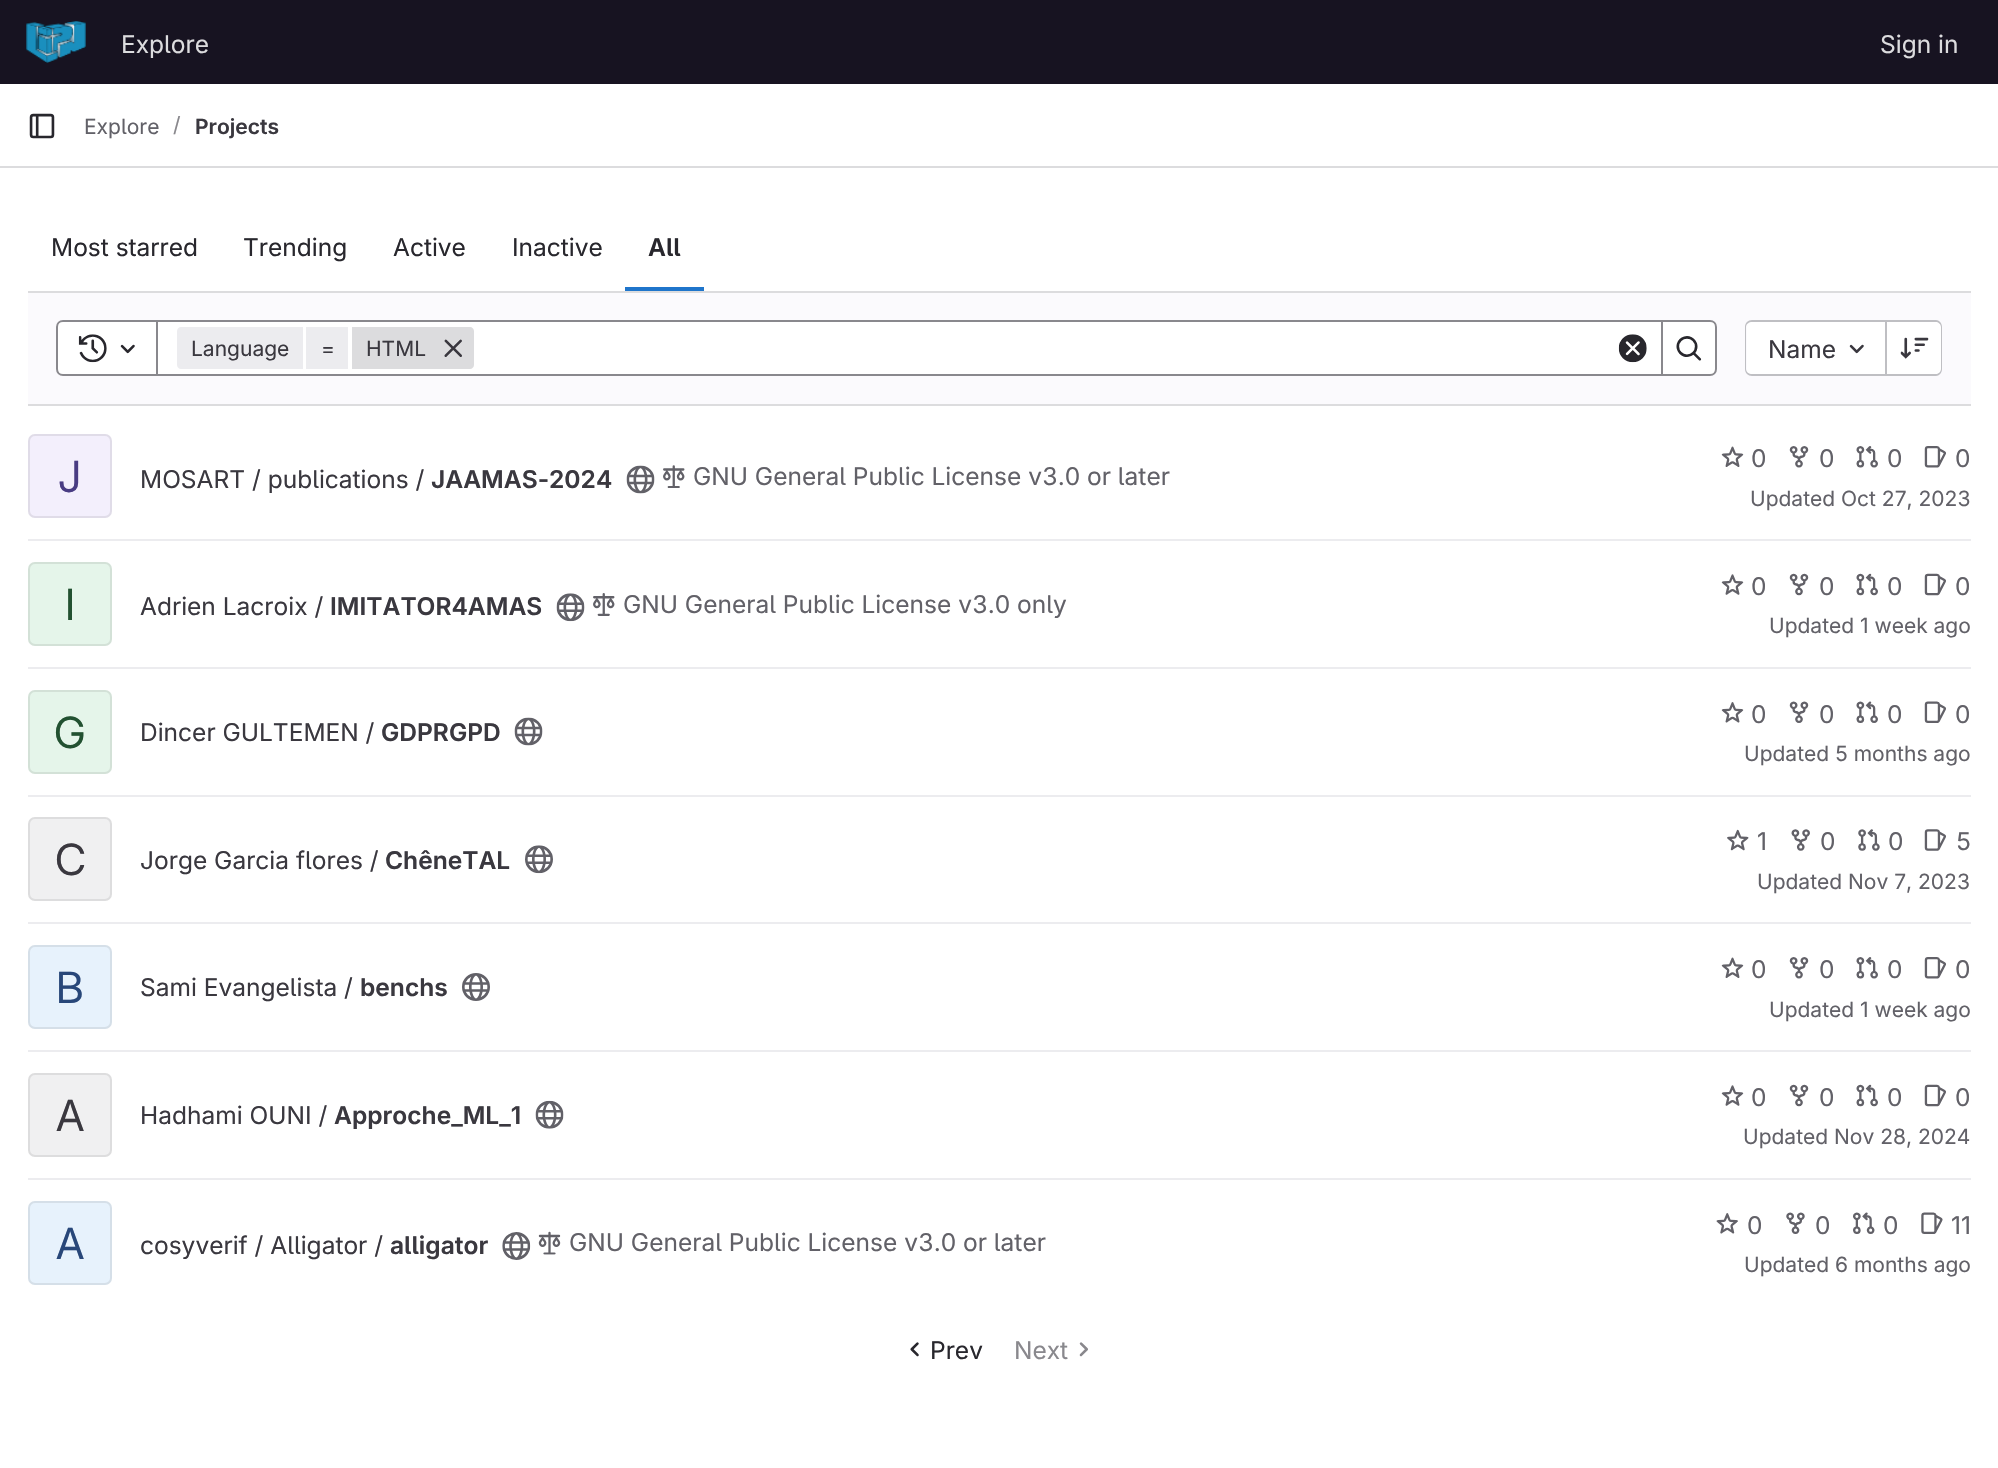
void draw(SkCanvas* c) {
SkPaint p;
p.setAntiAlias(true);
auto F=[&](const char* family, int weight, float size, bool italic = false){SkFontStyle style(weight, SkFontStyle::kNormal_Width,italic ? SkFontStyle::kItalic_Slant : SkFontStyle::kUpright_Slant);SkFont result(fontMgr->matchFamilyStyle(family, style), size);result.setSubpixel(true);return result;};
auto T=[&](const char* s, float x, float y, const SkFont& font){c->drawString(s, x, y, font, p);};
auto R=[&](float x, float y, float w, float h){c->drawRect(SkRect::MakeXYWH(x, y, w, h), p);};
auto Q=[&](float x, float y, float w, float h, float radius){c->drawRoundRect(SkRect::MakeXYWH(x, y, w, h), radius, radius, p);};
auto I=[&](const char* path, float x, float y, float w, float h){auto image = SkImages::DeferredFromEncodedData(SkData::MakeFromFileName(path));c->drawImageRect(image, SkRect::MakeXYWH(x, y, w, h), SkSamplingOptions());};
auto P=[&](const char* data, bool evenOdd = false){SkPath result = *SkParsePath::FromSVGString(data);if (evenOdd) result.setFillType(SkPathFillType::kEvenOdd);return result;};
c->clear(0xffffffff);
p.setColor(0xff171321);
R(0,0,1998,84);
I("1.png",26,21,60,42);
auto f1 = F("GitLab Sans",400,24.5);
p.setColor(0xffdcdcde);
T("Explore",121,53,f1);
T("Sign in",1880,53,f1);
R(0,166,1998,2);
I("2.png",29,113,26,26);
auto f2 = F("GitLab Sans",400,21);
p.setColor(0xff626168);
T("Explore",84,134,f2);
p.setColor(0xff89888d);
T("/",173,132,f2);
auto f3 = F("GitLab Sans",600,21);
p.setColor(0xff3a383f);
T("Projects",195,134,f3);
p.setColor(0xff28272d);
T("Most starred",51,256,f1);
T("Trending",243,256,f1);
T("Active",393,256,f1);
T("Inactive",512,256,f1);
auto f4 = F("GitLab Sans",600,24.5);
T("All",648,256,f4);
p.setColor(0xff1f75cb);
R(625,287,79,4);
p.setColor(0xfffbfafd);
R(28,293,1943,111);
p.setColor(0xffdcdcde);
R(28,291,1943,2);
R(28,404,1943,2);
p.setColor(0xffffffff);
c->drawRect(SkRect::MakeXYWH(157,321,1505,54),p);
p.setStroke(true);
p.setStrokeWidth(2);
p.setColor(0xff89888d);
c->drawRect(SkRect::MakeXYWH(157,321,1505,54),p);
p.setStroke(false);
p.setColor(0xffffffff);
c->drawPath(P("M63 321h94v54h-94c-3.5 0-6-2.5-6-6v-42c0-3.5 2.5-6 6-6z"),p);
p.setStroke(true);
p.setColor(0xff89888d);
c->drawPath(P("M63 321h94v54h-94c-3.5 0-6-2.5-6-6v-42c0-3.5 2.5-6 6-6z"),p);
I("3.png",78,334,29,29);
I("4.png",120,344,15,10);
p.setStroke(false);
p.setColor(0xffececef);
c->drawPath(P("M181 327h122v42h-122c-2 0-4-2-4-4v-34c0-2 2-4 4-4z"),p);
p.setColor(0xff3a383f);
T("Language",191,356,f2);
p.setColor(0xffececef);
R(306,327,42,42);
p.setColor(0xff3a383f);
T("=",321,356,f2);
p.setColor(0xffdcdcde);
c->drawPath(P("M352 327h118c2 0 4 2 4 4v34c0 2-2 4-4 4h-118z"),p);
p.setColor(0xff3a383f);
T("HTML",366,356,f2);
I("5.png",444,339,18,18);
I("6.png",1618,334,29,29);
p.setColor(0xffffffff);
c->drawPath(P("M1662 321h48c3.5 0 6 2.5 6 6v42c0 3.5-2.5 6-6 6h-48z"),p);
p.setStroke(true);
p.setColor(0xff89888d);
c->drawPath(P("M1662 321h48c3.5 0 6 2.5 6 6v42c0 3.5-2.5 6-6 6h-48z"),p);
I("7.png",1676,336,26,25);
p.setStroke(false);
p.setColor(0xffffffff);
c->drawPath(P("M1752 322h133v53h-133c-3 0-5-2-5-5v-43c0-3 2-5 5-5z"),p);
p.setColor(0xffbfbfc3);
c->drawPath(P("M1752 320h133v56h-133c-4 0-7-3-7-7v-42c0-4 3-7 7-7zm0 2h133v52h-133c-3 0-6-2-6-5v-42c0-3 3-5 6-5z",true),p);
p.setColor(0xff3a383f);
T("Name",1768,358,f1);
I("8.png",1849,344,15,10);
p.setColor(0xffffffff);
c->drawPath(P("M1887 322h49c3 0 5 2 5 5v43c0 3-2 5-5 5h-49z"),p);
p.setColor(0xffbfbfc3);
c->drawPath(P("M1886 320h50c3 0 6 3 6 7v42c0 4-3 7-6 7h-50zm0 2h50c2 0 5 2 5 5v42c0 3-3 5-5 5h-50z",true),p);
R(1885,320,2,56);
I("9.png",1900,337,29,22);
p.setColor(0xffececef);
R(28,539,1943,2);
p.setColor(0xfff3effc);
Q(28,434,84,84,7);
p.setStroke(true);
p.setColor(0x14050506);
c->drawRoundRect(SkRect::MakeXYWH(29,435,82,82),6,6,p);
auto f5 = F("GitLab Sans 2",400,43);
p.setStroke(false);
p.setColor(0xff493c83);
T("J",58,492,f5);
p.setColor(0xff3a383f);
T("MOSART / publications /",140,488,f1);
T("JAAMAS-2024",431,488,f4);
I("10.png",626,465,29,29);
I("11.png",663,465,22,23);
p.setColor(0xff626168);
T("GNU General Public License v3.0 or later",693,485,f1);
I("12.png",1721,446,23,21);
T("0",1751,467,f1);
I("13.png",1789,446,20,22);
T("0",1819,467,f1);
I("14.png",1856,446,22,22);
T("0",1887,467,f1);
I("15.png",1924,446,22,22);
T("0",1955,467,f1);
T("Updated Oct 27, 2023",1750,506,f2);
p.setColor(0xffececef);
R(28,667,1943,2);
p.setColor(0xffe5f5ea);
Q(28,562,84,84,7);
p.setStroke(true);
p.setColor(0x14050506);
c->drawRoundRect(SkRect::MakeXYWH(29,563,82,82),6,6,p);
p.setStroke(false);
p.setColor(0xff225131);
T("I",65,620,f5);
p.setColor(0xff3a383f);
T("Adrien Lacroix /",140,615,f1);
T("IMITATOR4AMAS",330,615,f4);
I("16.png",556,593,29,29);
I("17.png",593,593,22,23);
p.setColor(0xff626168);
T("GNU General Public License v3.0 only",623,613,f1);
I("18.png",1721,574,23,21);
T("0",1751,595,f1);
I("19.png",1789,573,20,23);
T("0",1819,595,f1);
I("20.png",1856,573,22,23);
T("0",1887,595,f1);
I("21.png",1924,573,22,23);
T("0",1955,595,f1);
T("Updated 1 week ago",1769,633,f2);
p.setColor(0xffececef);
R(28,795,1943,2);
p.setColor(0xffe5f5ea);
Q(28,690,84,84,7);
p.setStroke(true);
p.setColor(0x14050506);
c->drawRoundRect(SkRect::MakeXYWH(29,691,82,82),6,6,p);
auto f6 = F("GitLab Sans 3",400,43);
p.setStroke(false);
p.setColor(0xff225131);
T("G",54,748,f6);
p.setColor(0xff3a383f);
T("Dincer GULTEMEN /",140,741,f1);
T("GDPRGPD",381,741,f4);
I("10.png",514,717,29,29);
I("22.png",1721,702,23,21);
p.setColor(0xff626168);
T("0",1751,723,f1);
I("23.png",1789,701,20,22);
T("0",1819,723,f1);
I("24.png",1856,701,22,22);
T("0",1887,723,f1);
I("25.png",1924,701,22,22);
T("0",1955,723,f1);
T("Updated 5 months ago",1744,761,f2);
p.setColor(0xffececef);
R(28,922,1943,2);
p.setColor(0xfff0f0f1);
Q(28,817,84,84,7);
p.setStroke(true);
p.setColor(0x14050506);
c->drawRoundRect(SkRect::MakeXYWH(29,818,82,82),6,6,p);
p.setStroke(false);
p.setColor(0xff3a383f);
T("C",55,875,f6);
T("Jorge Garcia flores /",140,869,f1);
T("ChêneTAL",385,869,f4);
I("26.png",525,845,28,29);
I("27.png",1727,829,22,22);
p.setColor(0xff626168);
T("1",1757,850,f1);
I("28.png",1791,829,19,22);
T("0",1820,850,f1);
I("29.png",1858,829,22,22);
T("0",1888,850,f1);
I("30.png",1924,829,22,22);
T("5",1956,850,f1);
T("Updated Nov 7, 2023",1757,889,f2);
p.setColor(0xffececef);
R(28,1050,1943,2);
p.setColor(0xffe7f2fc);
Q(28,945,84,84,7);
p.setStroke(true);
p.setColor(0x14050506);
c->drawRoundRect(SkRect::MakeXYWH(29,946,82,82),6,6,p);
p.setStroke(false);
p.setColor(0xff284779);
T("B",56,1003,f6);
p.setColor(0xff3a383f);
T("Sami Evangelista /",140,996,f1);
T("benchs",360,996,f4);
I("31.png",462,973,28,28);
I("12.png",1721,957,23,21);
p.setColor(0xff626168);
T("0",1751,978,f1);
I("32.png",1789,957,20,22);
T("0",1819,978,f1);
I("14.png",1856,957,22,22);
T("0",1887,978,f1);
I("15.png",1924,957,22,22);
T("0",1955,978,f1);
T("Updated 1 week ago",1769,1017,f2);
p.setColor(0xffececef);
R(28,1178,1943,2);
p.setColor(0xfff0f0f1);
Q(28,1073,84,84,7);
p.setStroke(true);
p.setColor(0x14050506);
c->drawRoundRect(SkRect::MakeXYWH(29,1074,82,82),6,6,p);
p.setStroke(false);
p.setColor(0xff3a383f);
T("A",56,1131,f5);
T("Hadhami OUNI /",140,1124,f1);
T("Approche_ML_1",334,1124,f4);
I("33.png",535,1100,29,29);
I("18.png",1721,1085,23,21);
p.setColor(0xff626168);
T("0",1751,1106,f1);
I("19.png",1789,1084,20,23);
T("0",1819,1106,f1);
I("20.png",1856,1084,22,23);
T("0",1887,1106,f1);
I("21.png",1924,1084,22,23);
T("0",1955,1106,f1);
T("Updated Nov 28, 2024",1743,1144,f2);
p.setColor(0xffe7f2fc);
Q(28,1201,84,84,7);
p.setStroke(true);
p.setColor(0x14050506);
c->drawRoundRect(SkRect::MakeXYWH(29,1202,82,82),6,6,p);
p.setStroke(false);
p.setColor(0xff284779);
T("A",56,1259,f5);
p.setColor(0xff3a383f);
T("cosyverif / Alligator /",140,1254,f1);
T("alligator",390,1254,f4);
I("34.png",502,1232,29,28);
I("35.png",538,1231,23,24);
p.setColor(0xff626168);
T("GNU General Public License v3.0 or later",569,1251,f1);
I("36.png",1716,1213,22,21);
T("0",1747,1234,f1);
I("37.png",1786,1212,19,22);
T("0",1815,1234,f1);
I("38.png",1853,1212,22,22);
T("0",1883,1234,f1);
I("39.png",1921,1212,22,22);
T("11",1951,1234,f1);
T("Updated 6 months ago",1744,1272,f2);
I("40.png",910,1342,9,15);
p.setColor(0xff28272d);
T("Prev",930,1359,f1);
p.setColor(0xff89888d);
T("Next",1014,1359,f1);
I("41.png",1079,1342,9,15);
}
